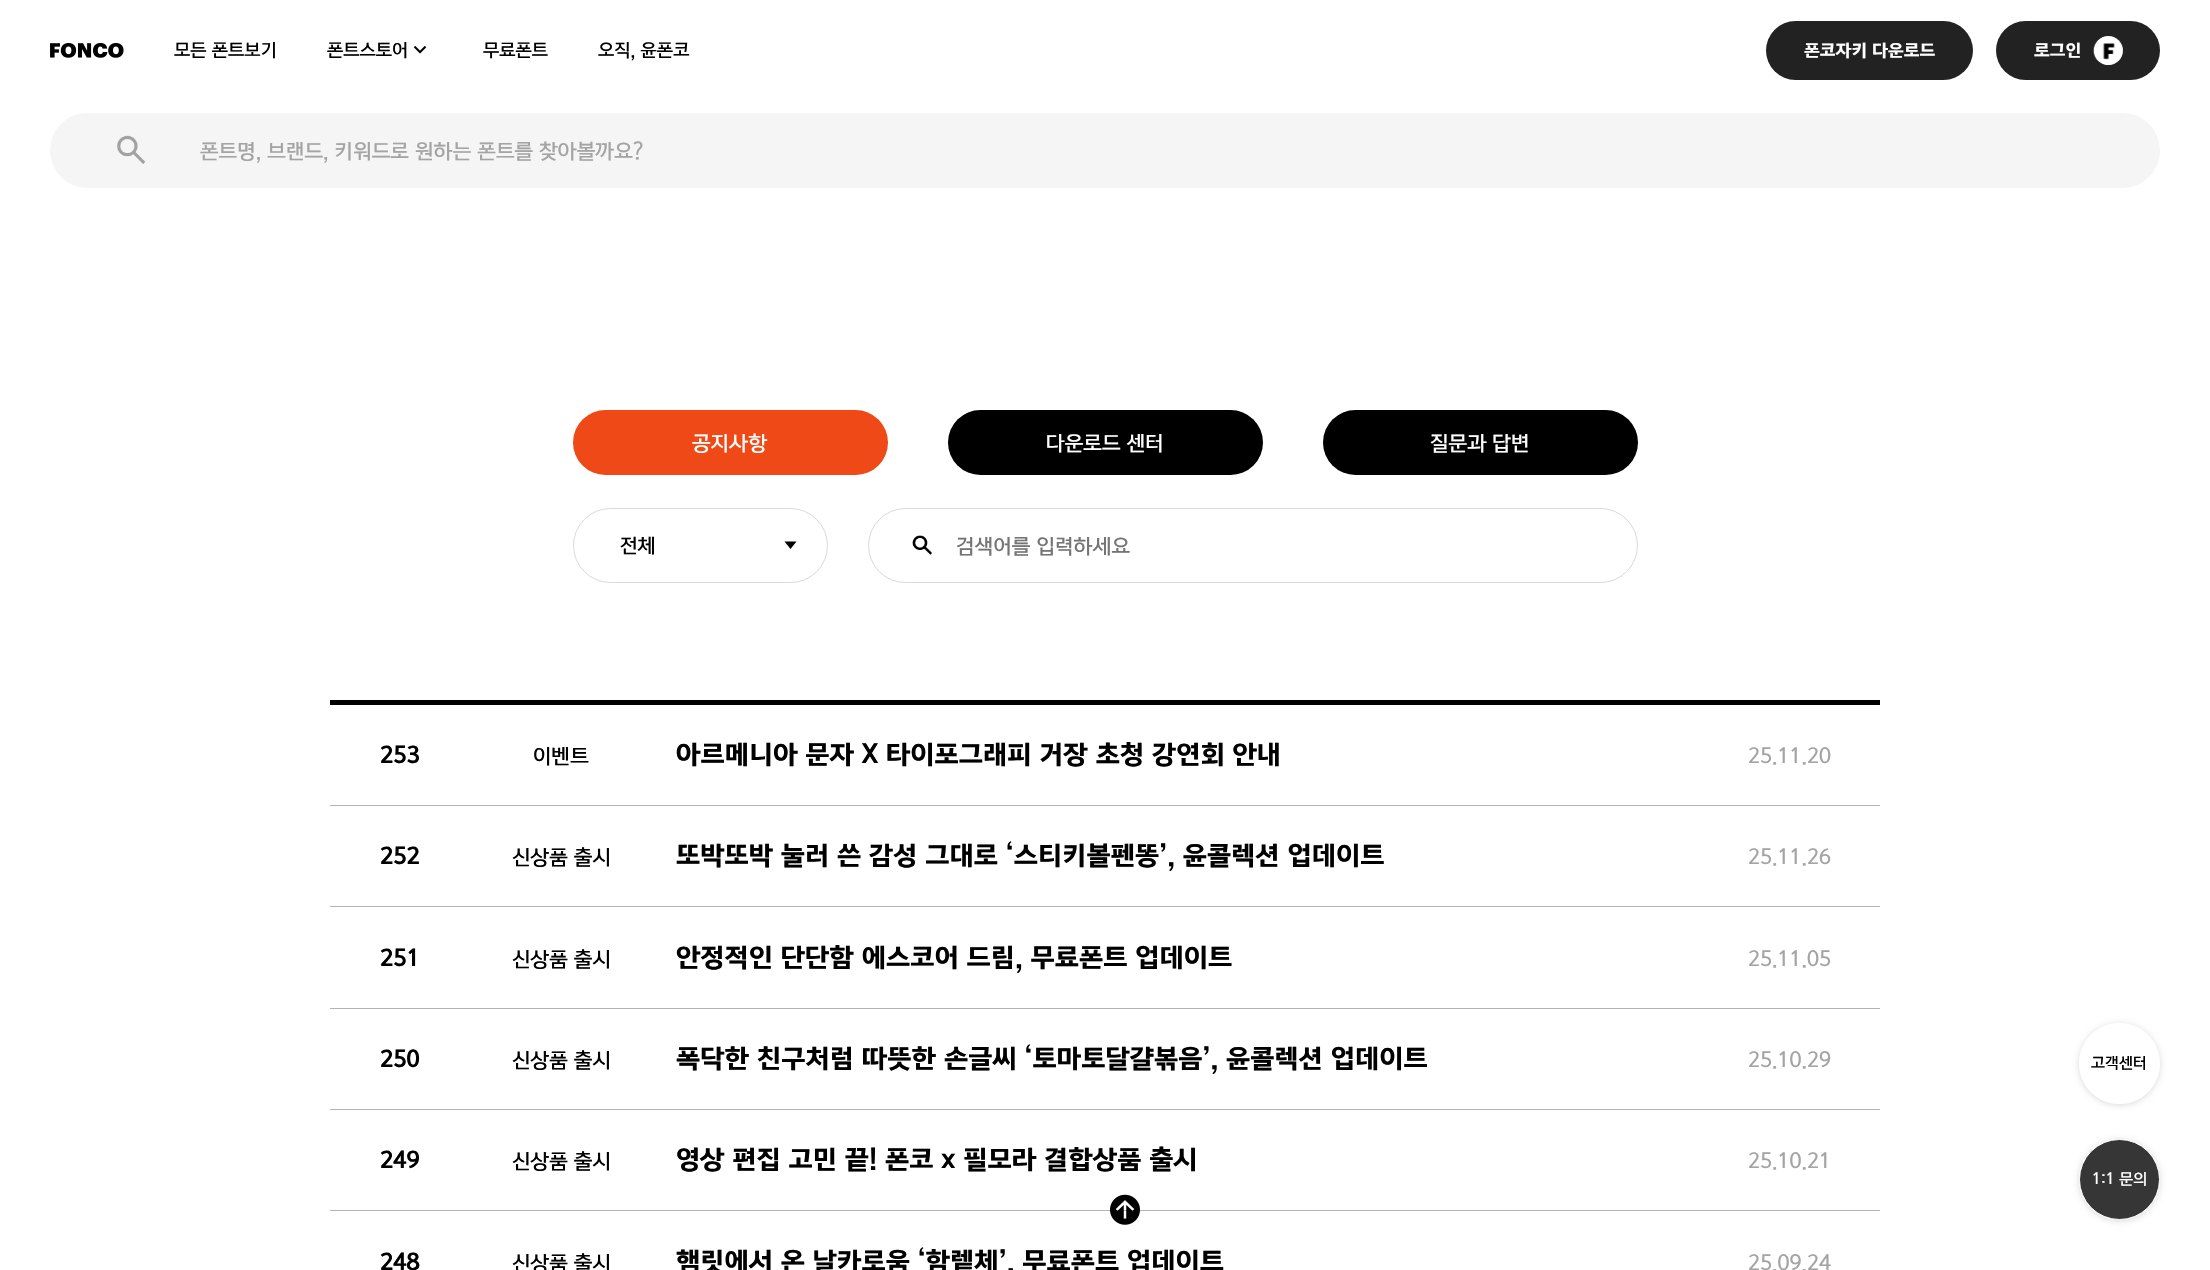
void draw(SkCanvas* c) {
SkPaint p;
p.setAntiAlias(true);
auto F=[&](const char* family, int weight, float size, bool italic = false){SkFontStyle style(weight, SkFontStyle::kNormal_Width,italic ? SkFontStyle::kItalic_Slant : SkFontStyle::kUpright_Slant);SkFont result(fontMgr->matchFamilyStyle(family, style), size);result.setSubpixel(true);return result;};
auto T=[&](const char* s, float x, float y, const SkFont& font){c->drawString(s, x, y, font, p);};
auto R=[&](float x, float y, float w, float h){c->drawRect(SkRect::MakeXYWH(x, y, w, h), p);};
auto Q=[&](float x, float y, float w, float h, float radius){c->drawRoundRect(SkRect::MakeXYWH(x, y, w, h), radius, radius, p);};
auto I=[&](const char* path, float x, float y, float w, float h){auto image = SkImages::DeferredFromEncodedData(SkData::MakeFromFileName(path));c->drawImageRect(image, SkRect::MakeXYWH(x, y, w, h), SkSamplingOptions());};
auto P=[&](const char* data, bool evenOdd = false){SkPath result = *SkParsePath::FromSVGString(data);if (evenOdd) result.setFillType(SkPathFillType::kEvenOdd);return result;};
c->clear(0xffffffff);
I("1.png",50,43,74,15);
auto f1 = F("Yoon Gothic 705",500,17.5);
p.setColor(0xff000000);
T("모든 폰트보기",174,56,f1);
T("폰트스토어",327,56,f1);
I("2.png",413,45,14,9);
T("무료폰트",483,56,f1);
T("오직, 윤폰코",598,56,f1);
p.setColor(0xff222222);
Q(1766,21,207,59,29.5);
auto f2 = F("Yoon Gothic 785",700,16.25);
p.setColor(0xffffffff);
T("폰코자키 다운로드",1804,56,f2);
p.setColor(0xff222222);
Q(1996,21,164,59,29.5);
p.setColor(0xffffffff);
T("로그인",2034,56,f2);
p.setColor(0xffd9d9d9);
c->drawCircle(2108.5,50.5,14.5,p);
I("3.png",2093,36,30,29);
p.setColor(0xfff5f5f5);
Q(50,113,2110,75,37.5);
I("4.png",117,135,29,29);
auto f3 = F("Yoon Gothic 705",500,20);
p.setColor(0xffa4a4a4);
T("폰트명, 브랜드, 키워드로 원하는 폰트를 찾아볼까요?",200,158,f3);
p.setColor(0xffee4916);
Q(573,410,315,65,32.5);
p.setColor(0xffffffff);
T("공지사항",692,450,f3);
p.setColor(0xff000000);
Q(948,410,315,65,32.5);
p.setColor(0xffffffff);
T("다운로드 센터",1046,450,f3);
p.setColor(0xff000000);
Q(1323,410,315,65,32.5);
p.setColor(0xffffffff);
T("질문과 답변",1430,450,f3);
p.setStroke(true);
p.setStrokeWidth(1);
p.setColor(0xffd9d9d9);
c->drawRoundRect(SkRect::MakeXYWH(573.5,508.5,254,74),37,37,p);
auto f4 = F("Yoon Gothic 705",500,19);
p.setStroke(false);
p.setColor(0xff000000);
T("전체",620,552,f4);
c->drawPath(P("M796.5 541.5l-6 7.5l-6-7.5z"),p);
p.setStroke(true);
p.setColor(0xffd9d9d9);
c->drawRoundRect(SkRect::MakeXYWH(868.5,508.5,769,74),37,37,p);
I("5.png",912,535,20,20);
p.setStroke(false);
p.setColor(0xff757575);
T("검색어를 입력하세요",956,553,f3);
p.setColor(0xff000000);
R(330,700,1550,5);
auto f5 = F("Yoon Gothic 785",700,22);
T("253",380,763,f5);
T("이벤트",533,763,f3);
auto f6 = F("Yoon Gothic 785",700,25);
T("아르메니아 문자 X 타이포그래피 거장 초청 강연회 안내",676,763,f6);
p.setColor(0xffa4a4a4);
T("25.11.20",1748,763,f3);
p.setColor(0xffb3b3b3);
R(330,805,1550,1);
p.setColor(0xff000000);
T("252",380,864,f5);
T("신상품 출시",512,864,f3);
T("또박또박 눌러 쓴 감성 그대로 ‘스티키볼펜똥’, 윤콜렉션 업데이트",676,864,f6);
p.setColor(0xffa4a4a4);
T("25.11.26",1748,864,f3);
p.setColor(0xffb3b3b3);
R(330,906,1550,1);
p.setColor(0xff000000);
T("251",380,966,f5);
T("신상품 출시",512,966,f3);
T("안정적인 단단함 에스코어 드림, 무료폰트 업데이트",676,966,f6);
p.setColor(0xffa4a4a4);
T("25.11.05",1748,966,f3);
p.setColor(0xffb3b3b3);
R(330,1008,1550,1);
p.setColor(0xff000000);
T("250",380,1067,f5);
T("신상품 출시",512,1067,f3);
T("폭닥한 친구처럼 따뜻한 손글씨 ‘토마토달걀볶음’, 윤콜렉션 업데이트",676,1067,f6);
p.setColor(0xffa4a4a4);
T("25.10.29",1748,1067,f3);
p.setColor(0xffb3b3b3);
R(330,1109,1550,1);
p.setColor(0xff000000);
T("249",380,1168,f5);
T("신상품 출시",512,1168,f3);
T("영상 편집 고민 끝! 폰코 x 필모라 결합상품 출시",676,1168,f6);
p.setColor(0xffa4a4a4);
T("25.10.21",1748,1168,f3);
p.setColor(0xffb3b3b3);
R(330,1210,1550,1);
p.setColor(0xff000000);
T("248",380,1270,f5);
T("신상품 출시",512,1270,f3);
T("햄릿에서 온 날카로움 ‘함렡체’, 무료폰트 업데이트",676,1270,f6);
p.setColor(0xffa4a4a4);
T("25.09.24",1748,1270,f3);
c->save();
c->clipPath(P("M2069 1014h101v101h-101zm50.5 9c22.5 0 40.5 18 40.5 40.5c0 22.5-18 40.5-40.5 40.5c-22.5 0-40.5-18-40.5-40.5c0-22.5 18-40.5 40.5-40.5z",true),true);
p.setColor(0x26000000);
p.setMaskFilter(SkMaskFilter::MakeBlur(kNormal_SkBlurStyle, 3));
c->drawRoundRect(SkRect::MakeXYWH(2079,1024,81,81),40.5,40.5,p);
p.setMaskFilter(nullptr);
c->restore();
p.setColor(0xc9ffffff);
c->drawCircle(2119.5,1063.5,40.5,p);
auto f7 = F("Yoon Gothic 705",500,15);
p.setColor(0xff000000);
T("고객센터",2091,1068,f7);
c->save();
c->clipPath(P("M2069 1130h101v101h-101zm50.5 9c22.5 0 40.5 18 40.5 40.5c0 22.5-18 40.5-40.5 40.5c-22.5 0-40.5-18-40.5-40.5c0-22.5 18-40.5 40.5-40.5z",true),true);
p.setColor(0x26000000);
p.setMaskFilter(SkMaskFilter::MakeBlur(kNormal_SkBlurStyle, 3));
c->drawRoundRect(SkRect::MakeXYWH(2079,1140,81,81),40.5,40.5,p);
p.setMaskFilter(nullptr);
c->restore();
p.setColor(0xc9000000);
c->drawCircle(2119.5,1179.5,40,p);
p.setStroke(true);
p.setColor(0xffffffff);
c->drawCircle(2119.5,1179.5,40,p);
p.setStroke(false);
T("1:1 문의",2092,1184,f7);
I("6.png",1110,1194,30,31);
}
